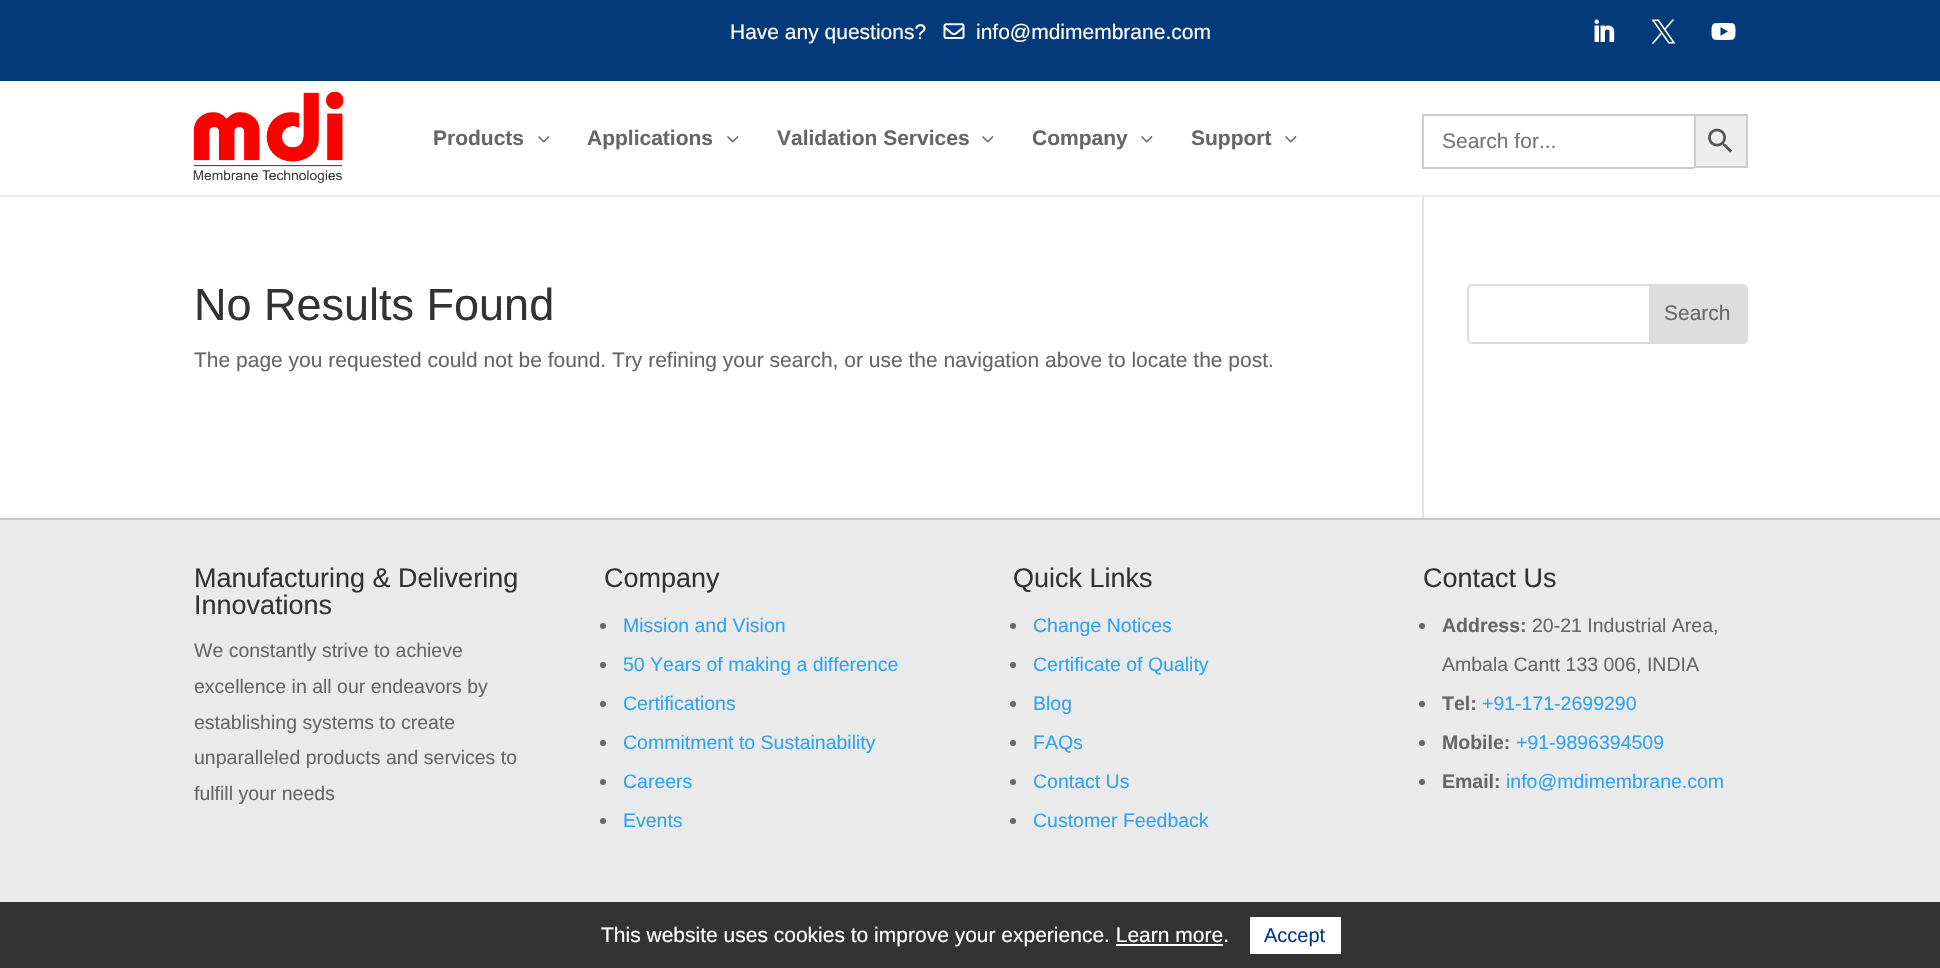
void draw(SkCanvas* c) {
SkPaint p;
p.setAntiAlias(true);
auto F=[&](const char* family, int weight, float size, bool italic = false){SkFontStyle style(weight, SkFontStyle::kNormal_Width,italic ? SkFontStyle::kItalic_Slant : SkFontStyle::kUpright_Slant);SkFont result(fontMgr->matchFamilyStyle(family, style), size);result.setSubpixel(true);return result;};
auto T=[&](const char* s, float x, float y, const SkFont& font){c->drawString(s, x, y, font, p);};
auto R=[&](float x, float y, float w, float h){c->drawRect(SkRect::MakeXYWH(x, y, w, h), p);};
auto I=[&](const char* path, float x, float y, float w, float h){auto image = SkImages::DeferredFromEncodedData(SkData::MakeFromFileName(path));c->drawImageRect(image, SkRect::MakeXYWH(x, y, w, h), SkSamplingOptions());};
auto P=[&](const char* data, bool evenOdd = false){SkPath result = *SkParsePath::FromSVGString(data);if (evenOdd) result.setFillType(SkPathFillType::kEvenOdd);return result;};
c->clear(0xffffffff);
p.setColor(0xff053a7a);
R(0,0,1940,81);
auto f1 = F("Liberation Sans",400,21);
p.setColor(0xffffffff);
T("Have any questions?",730,39,f1);
I("1.png",943,23,22,16);
T("info@mdimembrane.com",976,39,f1);
I("2.png",1594,19,21,23);
I("3.png",1651,19,25,25);
I("4.png",1711,23,25,17);
p.setColor(0xffececec);
R(0,195,1940,2);
I("5.png",193,91,151,92);
auto f2 = F("Liberation Sans",700,21);
p.setColor(0xff666666);
T("Products",433,145,f2);
I("6.png",538,136,12,7);
T("Applications",587,145,f2);
I("6.png",727,136,12,7);
T("Validation Services",777,145,f2);
I("6.png",982,136,12,7);
T("Company",1032,145,f2);
I("6.png",1141,136,12,7);
T("Support",1191,145,f2);
I("6.png",1285,136,12,7);
p.setColor(0xffcccccc);
R(1422,114,272,2);
R(1422,167,272,2);
R(1422,114,2,54);
p.setColor(0xff757575);
T("Search for...",1442,148,f1);
p.setColor(0xffededed);
c->drawRect(SkRect::MakeXYWH(1695,115,52,52),p);
p.setStroke(true);
p.setStrokeWidth(2);
p.setColor(0xffcccccc);
c->drawRect(SkRect::MakeXYWH(1695,115,52,52),p);
I("7.png",1708,128,25,25);
p.setStroke(false);
p.setColor(0xffe2e2e2);
R(1422,197,2,321);
auto f3 = F("Liberation Sans",400,45);
p.setColor(0xff333333);
T("No Results Found",194,320,f3);
p.setColor(0xff666666);
T("The page you requested could not be found. Try refining your search, or use the navigation above to locate the post.",194,367,f1);
p.setStroke(true);
p.setColor(0xffdddddd);
c->drawRoundRect(SkRect::MakeXYWH(1468,285,279,58),4,4,p);
p.setStroke(false);
c->drawPath(P("M1650 285h93c2 0 4 2 4 4v50c0 2-2 4-4 4h-93z"),p);
p.setStroke(true);
c->drawPath(P("M1650 285h93c2 0 4 2 4 4v50c0 2-2 4-4 4h-93z"),p);
p.setStroke(false);
p.setColor(0xff666666);
T("Search",1664,320,f1);
p.setColor(0xffeaeaea);
R(0,520,1940,382);
p.setColor(0xffcacaca);
R(0,518,1940,2);
auto f4 = F("Liberation Sans",400,27);
p.setColor(0xff333333);
T("Manufacturing & Delivering",194,587,f4);
T("Innovations",194,614,f4);
auto f5 = F("Liberation Sans",400,19.5);
p.setColor(0xff666666);
T("We constantly strive to achieve",194,657,f5);
T("excellence in all our endeavors by",194,693,f5);
T("establishing systems to create",194,729,f5);
T("unparalleled products and services to",194,764,f5);
T("fulfill your needs",194,800,f5);
p.setColor(0xff333333);
T("Company",604,587,f4);
p.setColor(0xff666666);
c->drawCircle(603,626,3,p);
p.setColor(0xff2ea3f2);
T("Mission and Vision",623,632,f5);
p.setColor(0xff666666);
c->drawCircle(603,665,3,p);
p.setColor(0xff2ea3f2);
T("50 Years of making a difference",623,671,f5);
p.setColor(0xff666666);
c->drawCircle(603,704,3,p);
p.setColor(0xff2ea3f2);
T("Certifications",623,710,f5);
p.setColor(0xff666666);
c->drawCircle(603,743,3,p);
p.setColor(0xff2ea3f2);
T("Commitment to Sustainability",623,749,f5);
p.setColor(0xff666666);
c->drawCircle(603,782,3,p);
p.setColor(0xff2ea3f2);
T("Careers",623,788,f5);
p.setColor(0xff666666);
c->drawCircle(603,821,3,p);
p.setColor(0xff2ea3f2);
T("Events",623,827,f5);
p.setColor(0xff333333);
T("Quick Links",1013,587,f4);
p.setColor(0xff666666);
c->drawCircle(1013,626,3,p);
p.setColor(0xff2ea3f2);
T("Change Notices",1033,632,f5);
p.setColor(0xff666666);
c->drawCircle(1013,665,3,p);
p.setColor(0xff2ea3f2);
T("Certificate of Quality",1033,671,f5);
p.setColor(0xff666666);
c->drawCircle(1013,704,3,p);
p.setColor(0xff2ea3f2);
T("Blog",1033,710,f5);
p.setColor(0xff666666);
c->drawCircle(1013,743,3,p);
p.setColor(0xff2ea3f2);
T("FAQs",1033,749,f5);
p.setColor(0xff666666);
c->drawCircle(1013,782,3,p);
p.setColor(0xff2ea3f2);
T("Contact Us",1033,788,f5);
p.setColor(0xff666666);
c->drawCircle(1013,821,3,p);
p.setColor(0xff2ea3f2);
T("Customer Feedback",1033,827,f5);
p.setColor(0xff333333);
T("Contact Us",1423,587,f4);
p.setColor(0xff666666);
c->drawCircle(1422,626,3,p);
auto f6 = F("Liberation Sans",700,19.5);
T("Address:",1442,632,f6);
T("20-21 Industrial Area,",1532,632,f5);
T("Ambala Cantt 133 006, INDIA",1442,671,f5);
c->drawCircle(1422,704,3,p);
T("Tel:",1442,710,f6);
p.setColor(0xff2ea3f2);
T("+91-171-2699290",1482,710,f5);
p.setColor(0xff666666);
c->drawCircle(1422,743,3,p);
T("Mobile:",1442,749,f6);
p.setColor(0xff2ea3f2);
T("+91-9896394509",1516,749,f5);
p.setColor(0xff666666);
c->drawCircle(1422,782,3,p);
T("Email:",1442,788,f6);
p.setColor(0xff2ea3f2);
T("info@mdimembrane.com",1506,788,f5);
p.setColor(0xff333333);
R(0,902,1940,66);
p.setColor(0xffffffff);
T("This website uses cookies to improve your experience. Learn more.",601,942,f1);
R(1250,917,91,37);
auto f7 = F("Liberation Sans",400,20);
p.setColor(0xff053a7a);
T("Accept",1264,942,f7);
p.setColor(0xffffffff);
R(1116,944,107,2);
}
